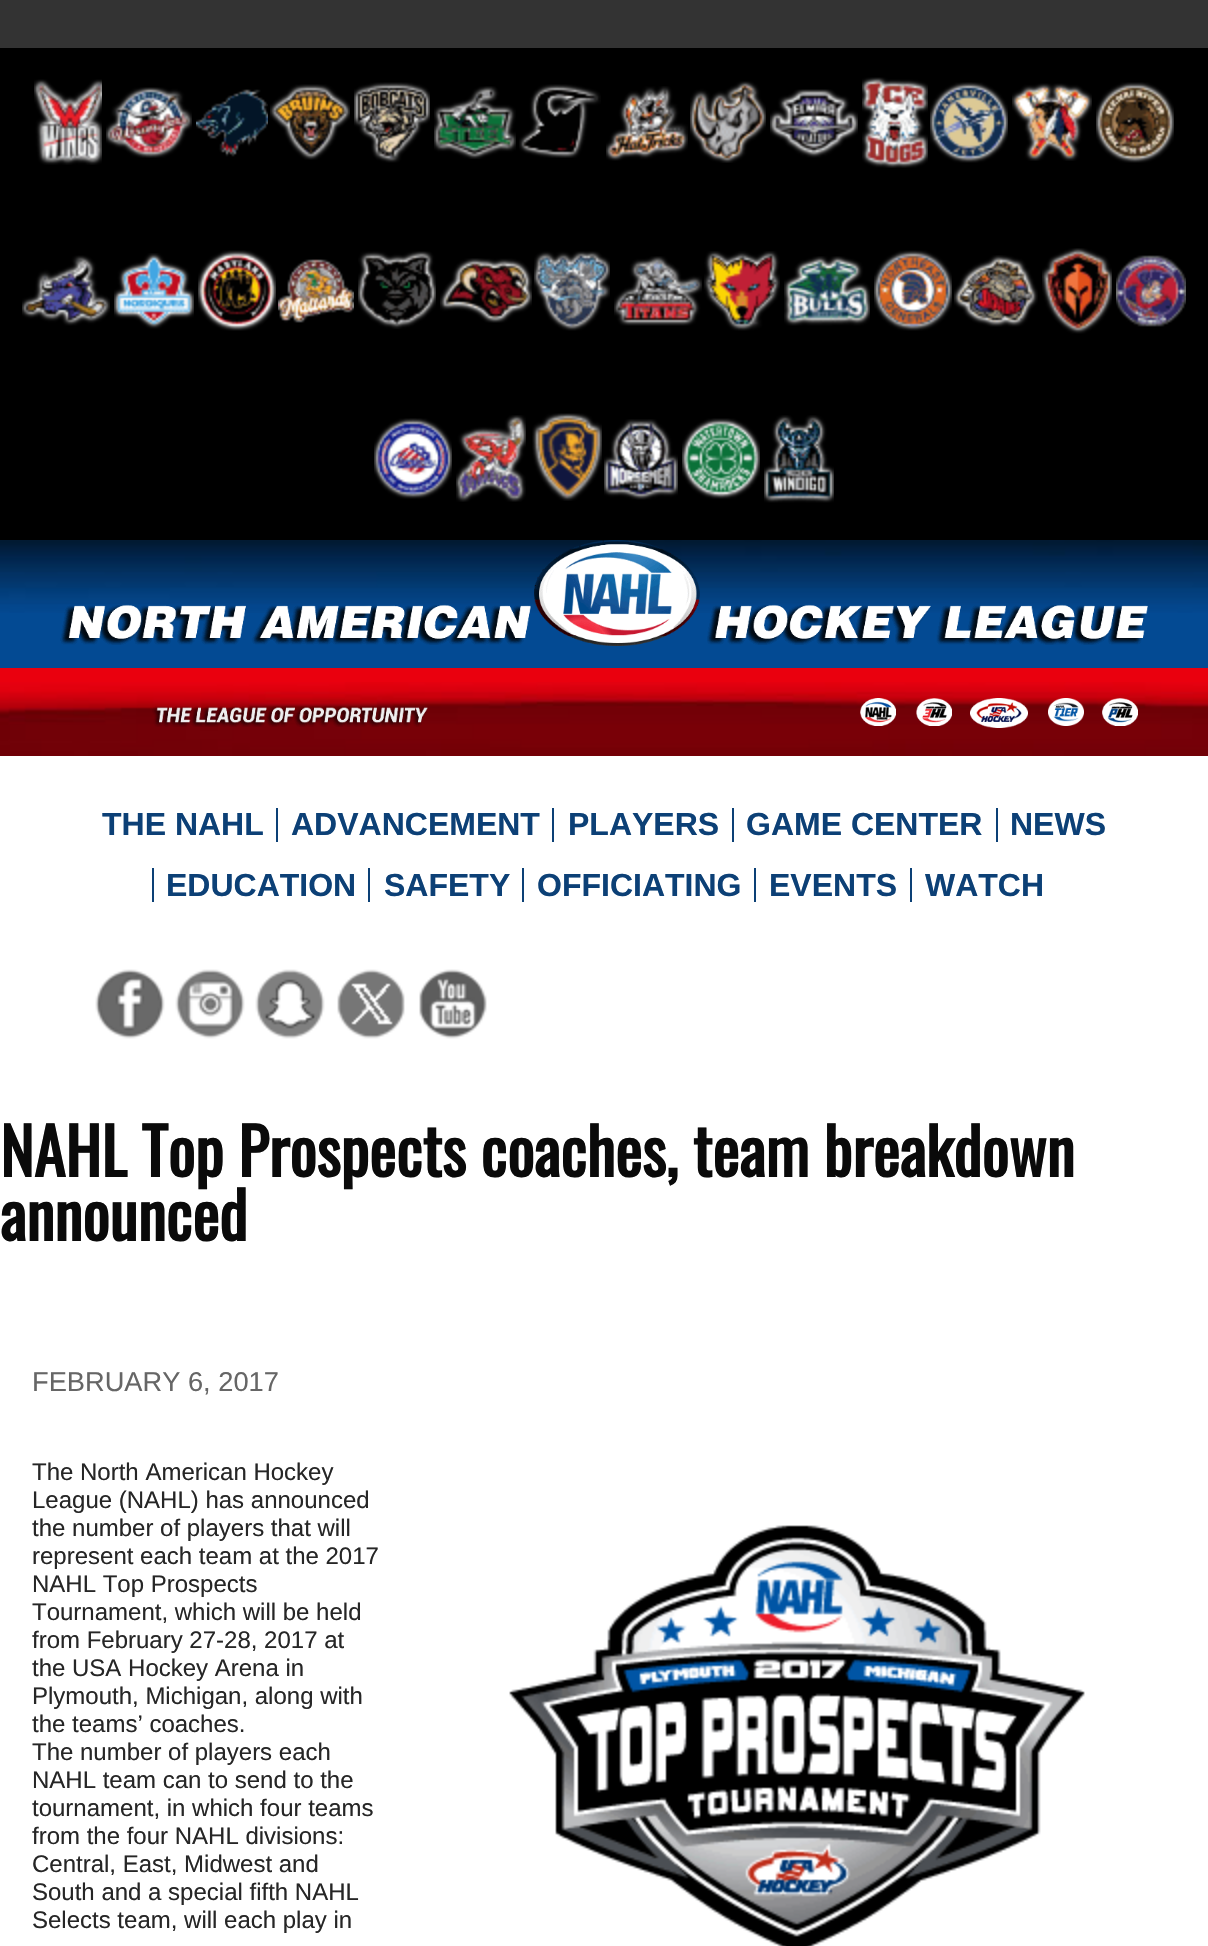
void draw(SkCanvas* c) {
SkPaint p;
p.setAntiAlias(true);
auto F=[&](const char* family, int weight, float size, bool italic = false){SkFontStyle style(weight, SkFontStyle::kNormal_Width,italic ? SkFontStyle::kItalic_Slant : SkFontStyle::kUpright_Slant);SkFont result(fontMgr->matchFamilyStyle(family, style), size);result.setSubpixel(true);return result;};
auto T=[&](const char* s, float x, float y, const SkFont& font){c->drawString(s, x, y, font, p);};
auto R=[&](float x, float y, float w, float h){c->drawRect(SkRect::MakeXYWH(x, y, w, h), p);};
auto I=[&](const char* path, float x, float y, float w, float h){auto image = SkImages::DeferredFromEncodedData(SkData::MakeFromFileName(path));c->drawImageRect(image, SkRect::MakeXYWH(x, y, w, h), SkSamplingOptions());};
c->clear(0xff333333);
p.setColor(0xffffffff);
R(0,756,1208,1190);
p.setColor(0xff000000);
R(0,48,1208,492);
I("1.png",34,79,68,86);
I("2.png",106,87,86,71);
I("3.png",196,89,72,68);
I("4.png",270,84,80,76);
I("5.png",354,82,76,81);
I("6.png",434,86,82,73);
I("7.png",519,84,82,74);
I("8.png",606,86,82,75);
I("9.png",690,81,76,82);
I("10.png",770,89,88,69);
I("11.png",862,77,66,91);
I("12.png",930,82,78,81);
I("13.png",1012,83,80,78);
I("14.png",1096,82,78,81);
I("15.png",22,255,88,71);
I("16.png",114,253,80,76);
I("17.png",198,250,78,81);
I("18.png",278,259,76,64);
I("19.png",358,251,78,78);
I("20.png",440,258,92,65);
I("21.png",534,251,76,80);
I("22.png",614,256,88,70);
I("23.png",704,251,76,80);
I("24.png",784,256,86,70);
I("25.png",874,250,78,81);
I("26.png",954,255,84,72);
I("27.png",1042,248,70,86);
I("28.png",1116,255,70,72);
I("29.png",374,418,78,81);
I("30.png",456,415,70,87);
I("31.png",532,413,70,88);
I("32.png",604,419,74,81);
I("33.png",682,418,78,81);
I("34.png",764,415,70,88);
p.setColor(0xff034a93);
R(0,613,1208,55);
I("35.png",0,540,1208,73);
I("37.png",60,604,1088,41);
I("36.png",534,540,166,106);
p.setColor(0xffea000e);
R(0,668,1208,14);
I("38.png",0,682,1208,74);
I("39.png",152,706,276,21);
I("40.png",860,698,36,28);
I("41.png",916,698,36,28);
I("42.png",970,698,58,30);
I("43.png",1048,698,36,28);
I("44.png",1102,698,36,28);
auto f1 = F("Liberation Sans",700,32);
p.setColor(0xff0c4076);
T("THE NAHL",102,835,f1);
T("ADVANCEMENT",291,835,f1);
R(276,808,2,34);
T("PLAYERS",568,835,f1);
R(552,808,2,34);
T("GAME CENTER",746,835,f1);
R(732,808,2,34);
T("NEWS",1010,835,f1);
R(996,808,2,34);
T("EDUCATION",166,896,f1);
R(152,868,2,34);
T("SAFETY",384,896,f1);
R(368,868,2,34);
T("OFFICIATING",537,896,f1);
R(522,868,2,34);
T("EVENTS",769,896,f1);
R(754,868,2,34);
T("WATCH",925,896,f1);
R(910,868,2,34);
I("45.png",95,969,70,70);
I("46.png",175,969,70,70);
I("47.png",255,969,70,70);
I("48.png",337,969,68,70);
I("49.png",419,969,68,70);
auto f2 = F("Oswald",700,64);
p.setColor(0xff0a0a0a);
T("NAHL Top Prospects coaches, team breakdown",0,1177,f2);
T("announced",0,1241,f2);
auto f3 = F("Liberation Sans",400,27.25);
p.setColor(0xff666666);
T("FEBRUARY 6, 2017",32,1391,f3);
auto f4 = F("Liberation Sans",400,24);
p.setColor(0xff262626);
T("The North American Hockey",32,1480,f4);
T("League (NAHL) has announced",32,1508,f4);
T("the number of players that will",32,1536,f4);
T("represent each team at the 2017",32,1564,f4);
T("NAHL Top Prospects",32,1592,f4);
T("Tournament, which will be held",32,1620,f4);
T("from February 27-28, 2017 at",32,1648,f4);
T("the USA Hockey Arena in",32,1676,f4);
T("Plymouth, Michigan, along with",32,1704,f4);
T("the teams’ coaches.",32,1732,f4);
I("50.png",509,1525,576,421);
T("The number of players each",32,1760,f4);
T("NAHL team can to send to the",32,1788,f4);
T("tournament, in which four teams",32,1816,f4);
T("from the four NAHL divisions:",32,1844,f4);
T("Central, East, Midwest and",32,1872,f4);
T("South and a special fifth NAHL",32,1900,f4);
T("Selects team, will each play in",32,1928,f4);
}
